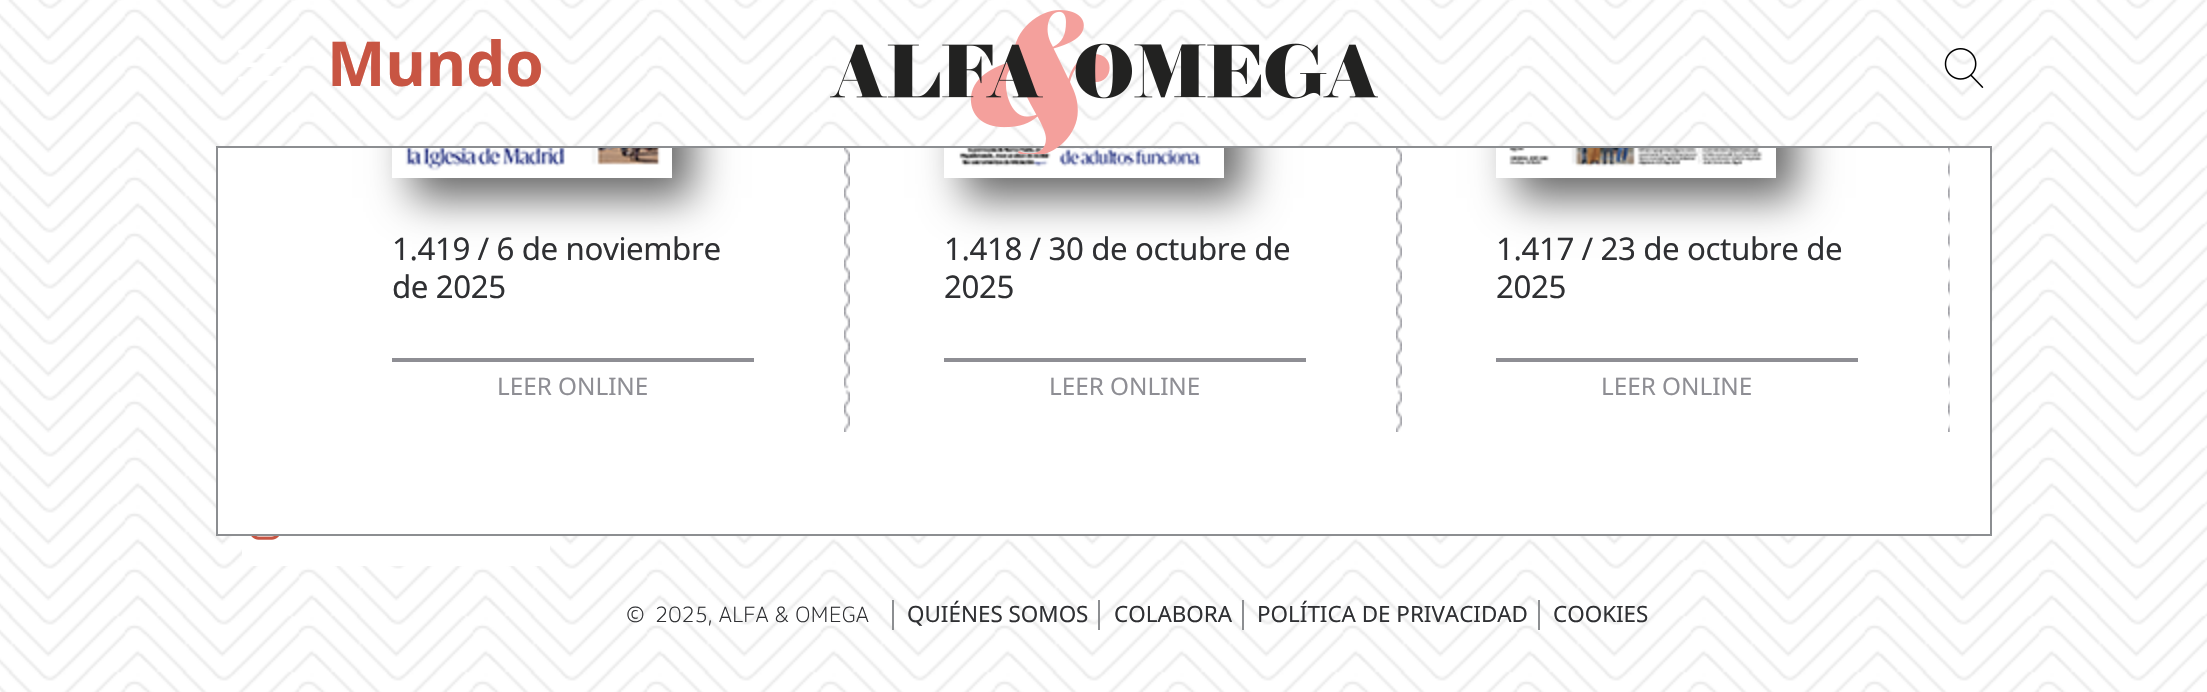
void draw(SkCanvas* c) {
SkPaint p;
p.setAntiAlias(true);
auto F=[&](const char* family, int weight, float size, bool italic = false){SkFontStyle style(weight, SkFontStyle::kNormal_Width,italic ? SkFontStyle::kItalic_Slant : SkFontStyle::kUpright_Slant);SkFont result(fontMgr->matchFamilyStyle(family, style), size);result.setSubpixel(true);return result;};
auto T=[&](const char* s, float x, float y, const SkFont& font){c->drawString(s, x, y, font, p);};
auto L=[&](const char* s, float x, float y, const SkFont& font, const SkPaint& ink, float letter, float word){std::vector<SkGlyphID> glyphs(font.countText(s, strlen(s), SkTextEncoding::kUTF8));std::vector<float> xs(glyphs.size());font.textToGlyphs(s, strlen(s), SkTextEncoding::kUTF8, glyphs);font.getXPos(glyphs, xs, x);float extra = 0;for (size_t i = 0; i < glyphs.size(); i++) {xs[i] += extra;extra += letter + word * (glyphs[i] == font.unicharToGlyph(' '));}c->drawTextBlob(SkTextBlob::MakeFromPosHGlyphs(glyphs, xs, y, font), 0, 0, ink);};
auto R=[&](float x, float y, float w, float h){c->drawRect(SkRect::MakeXYWH(x, y, w, h), p);};
auto I=[&](const char* path, float x, float y, float w, float h){auto image = SkImages::DeferredFromEncodedData(SkData::MakeFromFileName(path));c->drawImageRect(image, SkRect::MakeXYWH(x, y, w, h), SkSamplingOptions());};
auto P=[&](const char* data, bool evenOdd = false){SkPath result = *SkParsePath::FromSVGString(data);if (evenOdd) result.setFillType(SkPathFillType::kEvenOdd);return result;};
c->clear(0xffffffff);
I("1.png",0,0,2207,692);
p.setColor(0xffffffff);
R(218,148,1772,386);
c->save();
c->clipPath(P("M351 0h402v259h-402zm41-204h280v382h-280z",true),true);
p.setColor(0x99000000);
p.setMaskFilter(SkMaskFilter::MakeBlur(kNormal_SkBlurStyle, 20));
c->drawRect(SkRect::MakeXYWH(412,-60,280,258),p);
p.setMaskFilter(nullptr);
c->restore();
c->save();
c->clipPath(P("M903 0h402v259h-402zm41-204h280v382h-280z",true),true);
p.setMaskFilter(SkMaskFilter::MakeBlur(kNormal_SkBlurStyle, 20));
c->drawRect(SkRect::MakeXYWH(964,-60,280,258),p);
p.setMaskFilter(nullptr);
c->restore();
c->save();
c->clipPath(P("M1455 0h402v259h-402zm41-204h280v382h-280z",true),true);
p.setMaskFilter(SkMaskFilter::MakeBlur(kNormal_SkBlurStyle, 20));
c->drawRect(SkRect::MakeXYWH(1516,-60,280,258),p);
p.setMaskFilter(nullptr);
c->restore();
I("2.png",216,0,1776,146);
p.setColor(0xff8c8e91);
R(216,146,1776,2);
p.setStroke(true);
p.setStrokeWidth(4);
p.setStrokeCap(SkPaint::kRound_Cap);
p.setColor(0xffffffff);
c->drawPath(P("M246 51h38.5m-38.5 13.5h38.5m-38.5 13.5h38.5m-44.5 .5h38m-38-13.5h38m-38-13.5h38"),p);
auto f1 = F("Noto Sans",700,62);
p.setStroke(false);
p.setColor(0xffc85543);
T("Mundo",327,86,f1);
I("6.png",844,148,6,284);
I("7.png",957,148,256,19);
I("3.png",830,10,548,144);
I("4.png",1944,48,40,40);
p.setColor(0xff8c8e91);
R(1990,148,2,388);
R(216,534,1776,2);
R(216,148,2,388);
I("5.png",405,148,256,23);
auto f2 = F("Noto Sans",400,31.25);
p.setColor(0xff2f3033);
L("1.419 / 6 de noviembre",392,260,f2,p,-.4,0);
L("de 2025",392,298,f2,p,-.4,0);
p.setColor(0xff8e8e94);
R(392,358,362,4);
auto f3 = F("Noto Sans",400,24.25);
T("LEER ONLINE",497,395,f3);
I("6.png",1396,148,6,284);
p.setColor(0xff2f3033);
L("1.418 / 30 de octubre de",944,260,f2,p,-.4,0);
L("2025",944,298,f2,p,-.4,0);
p.setColor(0xff8e8e94);
R(944,358,362,4);
T("LEER ONLINE",1049,395,f3);
I("8.png",1507,148,258,19);
I("9.png",1948,148,2,284);
p.setColor(0xff2f3033);
L("1.417 / 23 de octubre de",1496,260,f2,p,-.4,0);
L("2025",1496,298,f2,p,-.4,0);
p.setColor(0xff8e8e94);
R(1496,358,362,4);
T("LEER ONLINE",1601,395,f3);
p.setColor(0xffffffff);
R(242,536,308,30);
I("10.png",251,536,28,4);
auto f4 = F("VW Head",300,22.4);
p.setColor(0xff2f3033);
T("©",626,622,f4);
T("2025, ALFA & OMEGA",655,622,f4);
p.setColor(0xff8c8e91);
R(892,600,2,30);
auto f5 = F("Noto Sans",400,22.4);
p.setColor(0xff2f3033);
T("QUIÉNES SOMOS",907,622,f5);
p.setColor(0xff8c8e91);
R(1098,600,2,30);
p.setColor(0xff2f3033);
T("COLABORA",1114,622,f5);
p.setColor(0xff8c8e91);
R(1242,600,2,30);
p.setColor(0xff2f3033);
T("POLÍTICA DE PRIVACIDAD",1257,622,f5);
p.setColor(0xff8c8e91);
R(1538,600,2,30);
p.setColor(0xff2f3033);
T("COOKIES",1553,622,f5);
}
